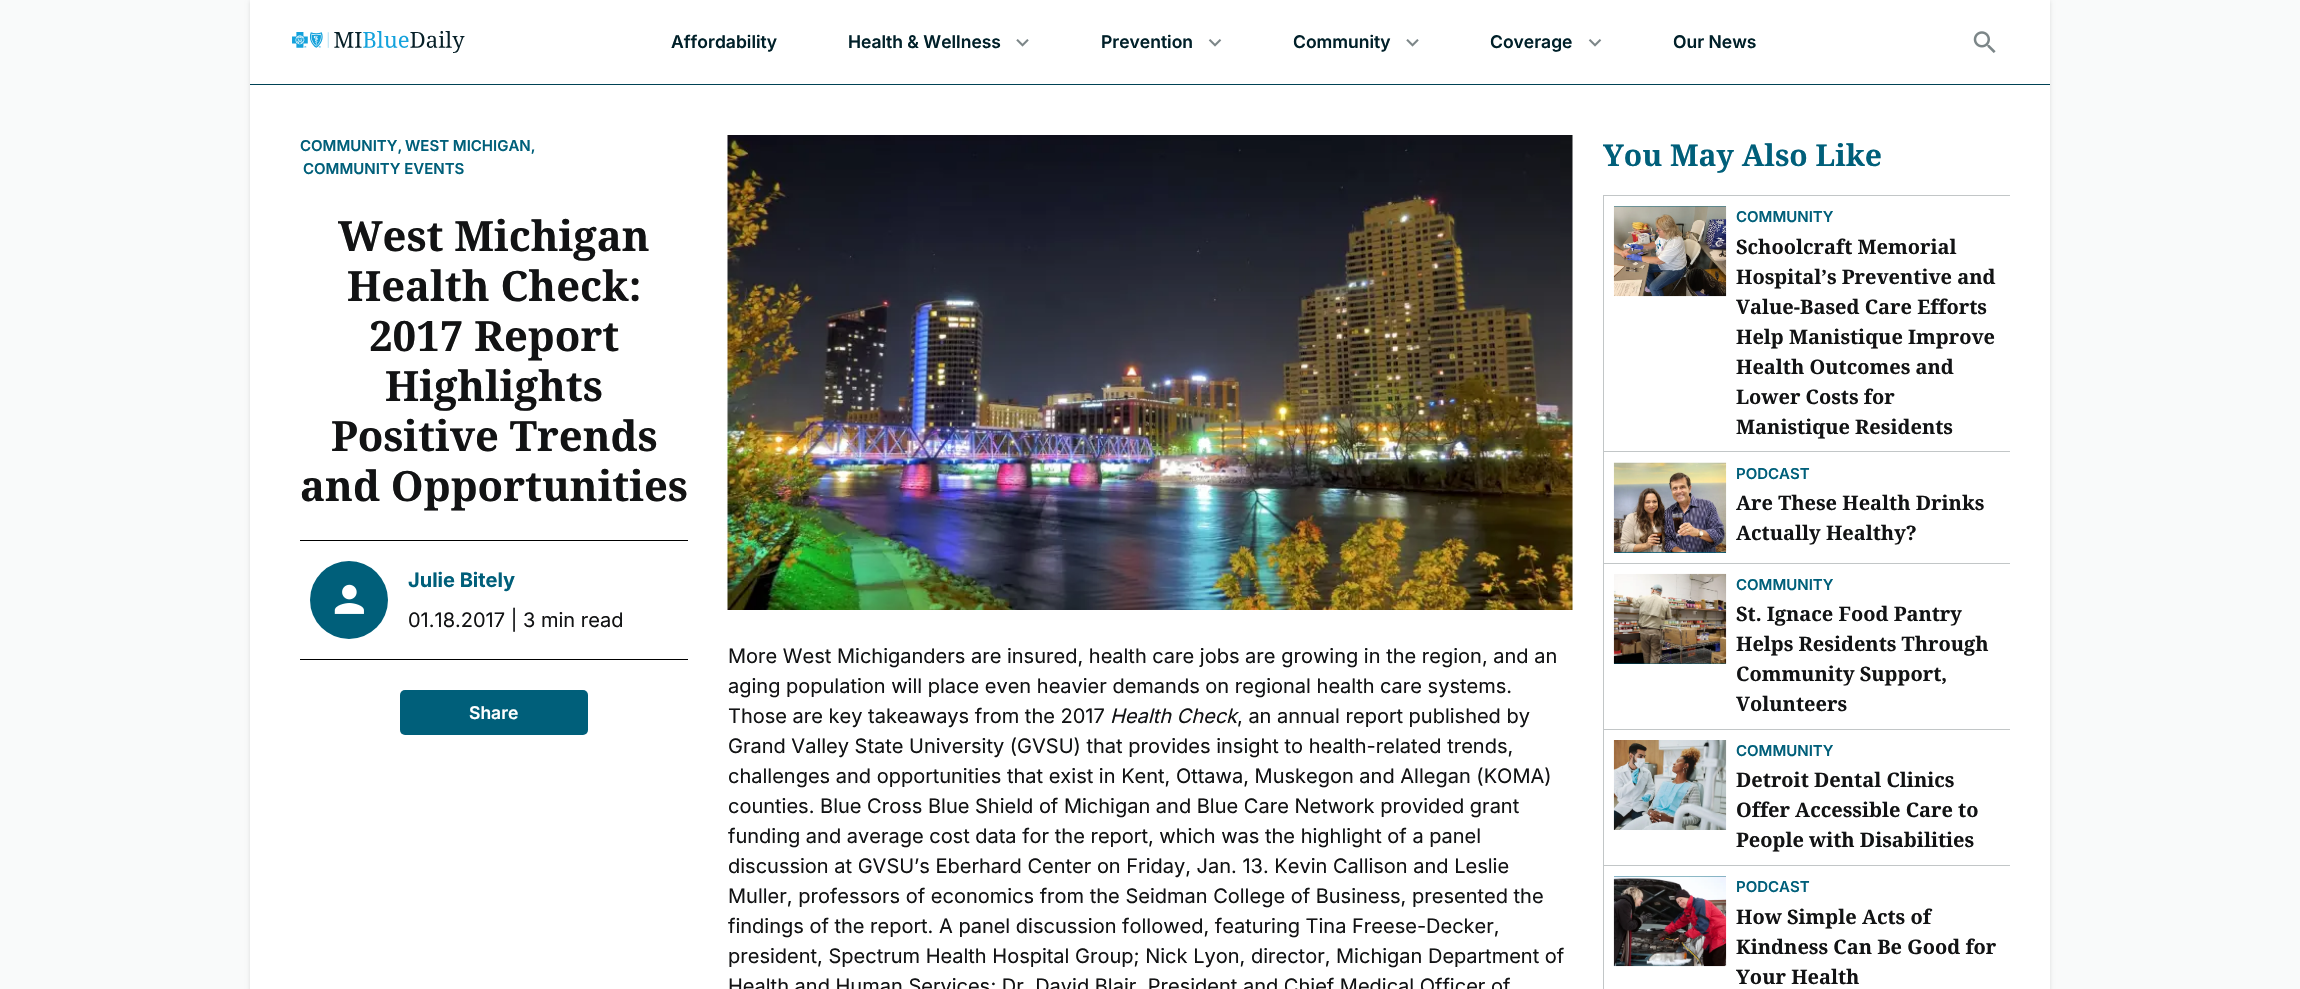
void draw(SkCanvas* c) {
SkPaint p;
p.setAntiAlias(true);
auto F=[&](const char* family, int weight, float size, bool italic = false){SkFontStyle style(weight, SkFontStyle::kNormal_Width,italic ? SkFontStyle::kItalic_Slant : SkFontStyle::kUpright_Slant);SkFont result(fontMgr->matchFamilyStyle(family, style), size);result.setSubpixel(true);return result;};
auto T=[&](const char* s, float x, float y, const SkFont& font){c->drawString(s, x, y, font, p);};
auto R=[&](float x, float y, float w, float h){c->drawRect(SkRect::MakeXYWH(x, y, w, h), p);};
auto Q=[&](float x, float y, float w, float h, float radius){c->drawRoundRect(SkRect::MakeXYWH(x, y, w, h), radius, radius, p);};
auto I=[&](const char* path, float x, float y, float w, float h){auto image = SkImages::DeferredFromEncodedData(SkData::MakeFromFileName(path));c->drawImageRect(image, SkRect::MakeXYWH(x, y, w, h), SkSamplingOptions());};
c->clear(0xfff9fafa);
p.setColor(0x1f000000);
p.setMaskFilter(SkMaskFilter::MakeBlur(kNormal_SkBlurStyle, 2));
c->drawRect(SkRect::MakeXYWH(250,1,1800,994),p);
p.setMaskFilter(nullptr);
p.setColor(0xffffffff);
R(250,0,1800,989);
p.setColor(0xff004255);
R(250,84,1800,1);
I("1.png",292,31,173,22);
auto f1 = F("Inter",600,17.5);
p.setColor(0xff002029);
T("Affordability",671,48,f1);
T("Health & Wellness",848,48,f1);
I("2.png",1016,39,13,8);
T("Prevention",1101,48,f1);
I("3.png",1208,39,14,8);
T("Community",1293,48,f1);
I("2.png",1406,39,13,8);
T("Coverage",1490,48,f1);
I("3.png",1588,39,14,8);
T("Our News",1673,48,f1);
I("4.png",1973,31,23,22);
auto f2 = F("Inter",600,15);
p.setColor(0xff005f7a);
T("COMMUNITY,",300,151,f2);
T("WEST MICHIGAN,",405,151,f2);
T("COMMUNITY EVENTS",303,174,f2);
auto f3 = F("Noto Serif",700,41.75);
p.setColor(0xff121314);
T("West Michigan",338,251,f3);
T("Health Check:",347,301,f3);
T("2017 Report",369,351,f3);
T("Highlights",385,401,f3);
T("Positive Trends",331,451,f3);
T("and Opportunities",300,501,f3);
p.setColor(0xff000000);
R(300,540,388,1);
R(300,659,388,1);
p.setColor(0xff005f7a);
c->drawCircle(349,600,39,p);
I("5.png",334,584,30,30);
auto f4 = F("Inter",700,20);
T("Julie Bitely",408,587,f4);
auto f5 = F("Inter",400,20);
p.setColor(0xff121314);
T("01.18.2017 | 3 min read",408,627,f5);
p.setColor(0xff005f7a);
Q(400,690,188,45,5);
p.setColor(0xffffffff);
T("Share",469,719,f1);
I("6.png",727,135,846,475);
p.setColor(0xff121314);
T("More West Michiganders are insured, health care jobs are growing in the region, and an",728,663,f5);
T("aging population will place even heavier demands on regional health care systems.",728,693,f5);
T("Those are key takeaways from the 2017",728,723,f5);
auto f6 = F("Inter",400,20,true);
T("Health Check",1110,723,f6);
T(", an annual report published by",1237,723,f5);
T("Grand Valley State University (GVSU) that provides insight to health-related trends,",728,753,f5);
T("challenges and opportunities that exist in Kent, Ottawa, Muskegon and Allegan (KOMA)",728,783,f5);
T("counties. Blue Cross Blue Shield of Michigan and Blue Care Network provided grant",728,813,f5);
T("funding and average cost data for the report, which was the highlight of a panel",728,843,f5);
T("discussion at GVSU’s Eberhard Center on Friday, Jan. 13. Kevin Callison and Leslie",728,873,f5);
T("Muller, professors of economics from the Seidman College of Business, presented the",728,903,f5);
T("findings of the report. A panel discussion followed, featuring Tina Freese-Decker,",728,933,f5);
T("president, Spectrum Health Hospital Group; Nick Lyon, director, Michigan Department of",728,963,f5);
T("Health and Human Services; Dr. David Blair, President and Chief Medical Officer of",728,993,f5);
auto f7 = F("Noto Serif",700,30);
p.setColor(0xff005f7a);
T("You May Also Like",1603,166,f7);
p.setColor(0xffc2c6c7);
R(1603,195,1,794);
R(1604,195,406,1);
p.setColor(0xff005f7a);
R(1614,206,112,1);
I("7.png",1613,206,114,91);
T("COMMUNITY",1736,222,f2);
auto f8 = F("Noto Serif",700,20);
p.setColor(0xff121314);
T("Schoolcraft Memorial",1736,254,f8);
T("Hospital’s Preventive and",1736,284,f8);
T("Value-Based Care Efforts",1736,314,f8);
T("Help Manistique Improve",1736,344,f8);
T("Health Outcomes and",1736,374,f8);
T("Lower Costs for",1736,404,f8);
T("Manistique Residents",1736,434,f8);
p.setColor(0xffc2c6c7);
R(1604,451,406,1);
p.setColor(0xff005f7a);
R(1614,552,112,1);
I("8.png",1613,462,114,91);
T("PODCAST",1736,479,f2);
p.setColor(0xff121314);
T("Are These Health Drinks",1736,510,f8);
T("Actually Healthy?",1736,540,f8);
p.setColor(0xffc2c6c7);
R(1604,563,406,1);
p.setColor(0xff005f7a);
R(1614,663,112,1);
I("9.png",1613,573,114,91);
T("COMMUNITY",1736,590,f2);
p.setColor(0xff121314);
T("St. Ignace Food Pantry",1736,621,f8);
T("Helps Residents Through",1736,651,f8);
T("Community Support,",1736,681,f8);
T("Volunteers",1736,711,f8);
p.setColor(0xffc2c6c7);
R(1604,729,406,1);
I("10.png",1613,740,114,90);
p.setColor(0xff005f7a);
T("COMMUNITY",1736,756,f2);
p.setColor(0xff121314);
T("Detroit Dental Clinics",1736,787,f8);
T("Offer Accessible Care to",1736,817,f8);
T("People with Disabilities",1736,847,f8);
p.setColor(0xffc2c6c7);
R(1604,865,406,1);
p.setColor(0xff005f7a);
R(1614,876,112,1);
I("11.png",1613,876,114,91);
T("PODCAST",1736,892,f2);
p.setColor(0xff121314);
T("How Simple Acts of",1736,924,f8);
T("Kindness Can Be Good for",1736,954,f8);
T("Your Health",1736,984,f8);
}
